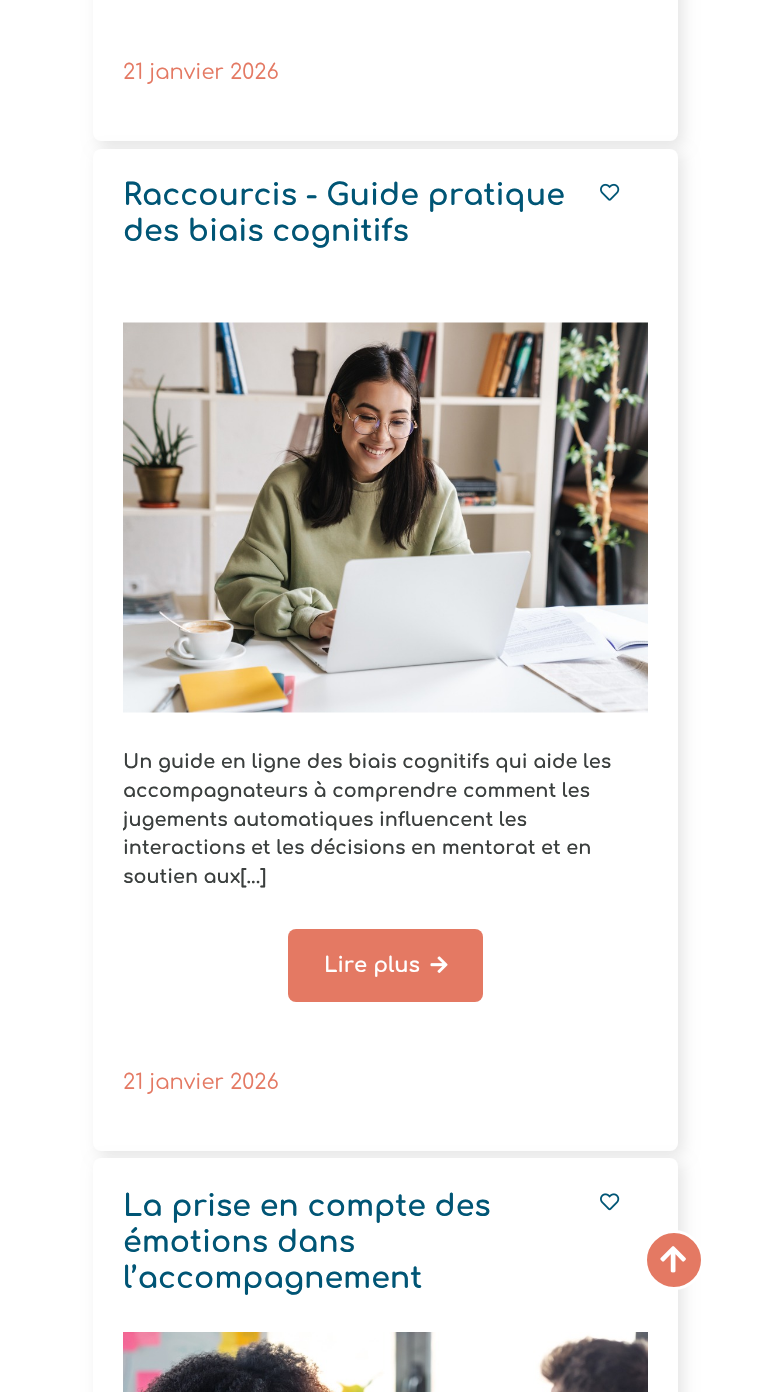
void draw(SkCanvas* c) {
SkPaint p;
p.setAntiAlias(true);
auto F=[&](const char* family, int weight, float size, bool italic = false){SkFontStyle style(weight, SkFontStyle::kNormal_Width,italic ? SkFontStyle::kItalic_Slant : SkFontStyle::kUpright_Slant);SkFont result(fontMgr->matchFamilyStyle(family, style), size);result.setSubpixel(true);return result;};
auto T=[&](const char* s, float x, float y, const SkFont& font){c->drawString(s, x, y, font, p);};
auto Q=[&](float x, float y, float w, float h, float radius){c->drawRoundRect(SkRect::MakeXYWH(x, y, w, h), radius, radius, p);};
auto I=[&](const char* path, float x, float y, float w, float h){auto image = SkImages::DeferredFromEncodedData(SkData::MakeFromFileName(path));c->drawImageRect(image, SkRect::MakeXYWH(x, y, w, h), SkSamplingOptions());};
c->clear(0xffffffff);
p.setColor(0x1a000000);
p.setMaskFilter(SkMaskFilter::MakeBlur(kNormal_SkBlurStyle, 7.5));
c->drawRoundRect(SkRect::MakeXYWH(98,-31,585,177),8,8,p);
p.setMaskFilter(nullptr);
p.setColor(0xffffffff);
Q(93,-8,585,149,8);
auto f1 = F("Comfortaa",400,21);
p.setColor(0xffe47963);
T("21 janvier 2026",123,79,f1);
p.setColor(0x1a000000);
p.setMaskFilter(SkMaskFilter::MakeBlur(kNormal_SkBlurStyle, 7.5));
c->drawRoundRect(SkRect::MakeXYWH(98,153,585,1002),8,8,p);
p.setMaskFilter(nullptr);
p.setColor(0xffffffff);
Q(93,149,585,1002,8);
auto f2 = F("Comfortaa",700,30);
p.setColor(0xff005575);
T("Raccourcis - Guide pratique",123,205,f2);
T("des biais cognitifs",123,241,f2);
I("1.png",600,183,20,18);
I("2.png",123,322,525,391);
auto f3 = F("Comfortaa",700,19.2);
p.setColor(0xff3b3f3e);
T("Un guide en ligne des biais cognitifs qui aide les",123,768,f3);
T("accompagnateurs à comprendre comment les",123,797,f3);
c->save();
c->clipRect(SkRect::MakeXYWH(123,749,525,144));
T("jugements automatiques influencent les",123,826,f3);
c->restore();
T("interactions et les décisions en mentorat et en",123,854,f3);
T("soutien aux[...]",123,883,f3);
p.setColor(0xffe47963);
Q(288,929,195,73,8);
auto f4 = F("Comfortaa",700,21);
p.setColor(0xffffffff);
T("Lire plus",324,972,f4);
I("3.png",430,956,18,17);
p.setColor(0xffe47963);
T("21 janvier 2026",123,1089,f1);
p.setColor(0x1a000000);
p.setMaskFilter(SkMaskFilter::MakeBlur(kNormal_SkBlurStyle, 7.5));
c->drawRoundRect(SkRect::MakeXYWH(98,1163,585,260),8,8,p);
p.setMaskFilter(nullptr);
p.setColor(0xffffffff);
Q(93,1158,585,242,8);
p.setColor(0xff005575);
T("La prise en compte des",123,1216,f2);
T("émotions dans",123,1252,f2);
T("l’accompagnement",123,1288,f2);
I("4.png",600,1193,20,18);
I("5.png",123,1332,525,60);
p.setColor(0xffe47963);
c->drawCircle(674,1260,28.5,p);
p.setStroke(true);
p.setStrokeWidth(3);
p.setColor(0xffffffff);
c->drawCircle(674,1260,28.5,p);
I("6.png",660,1246,26,27);
}
